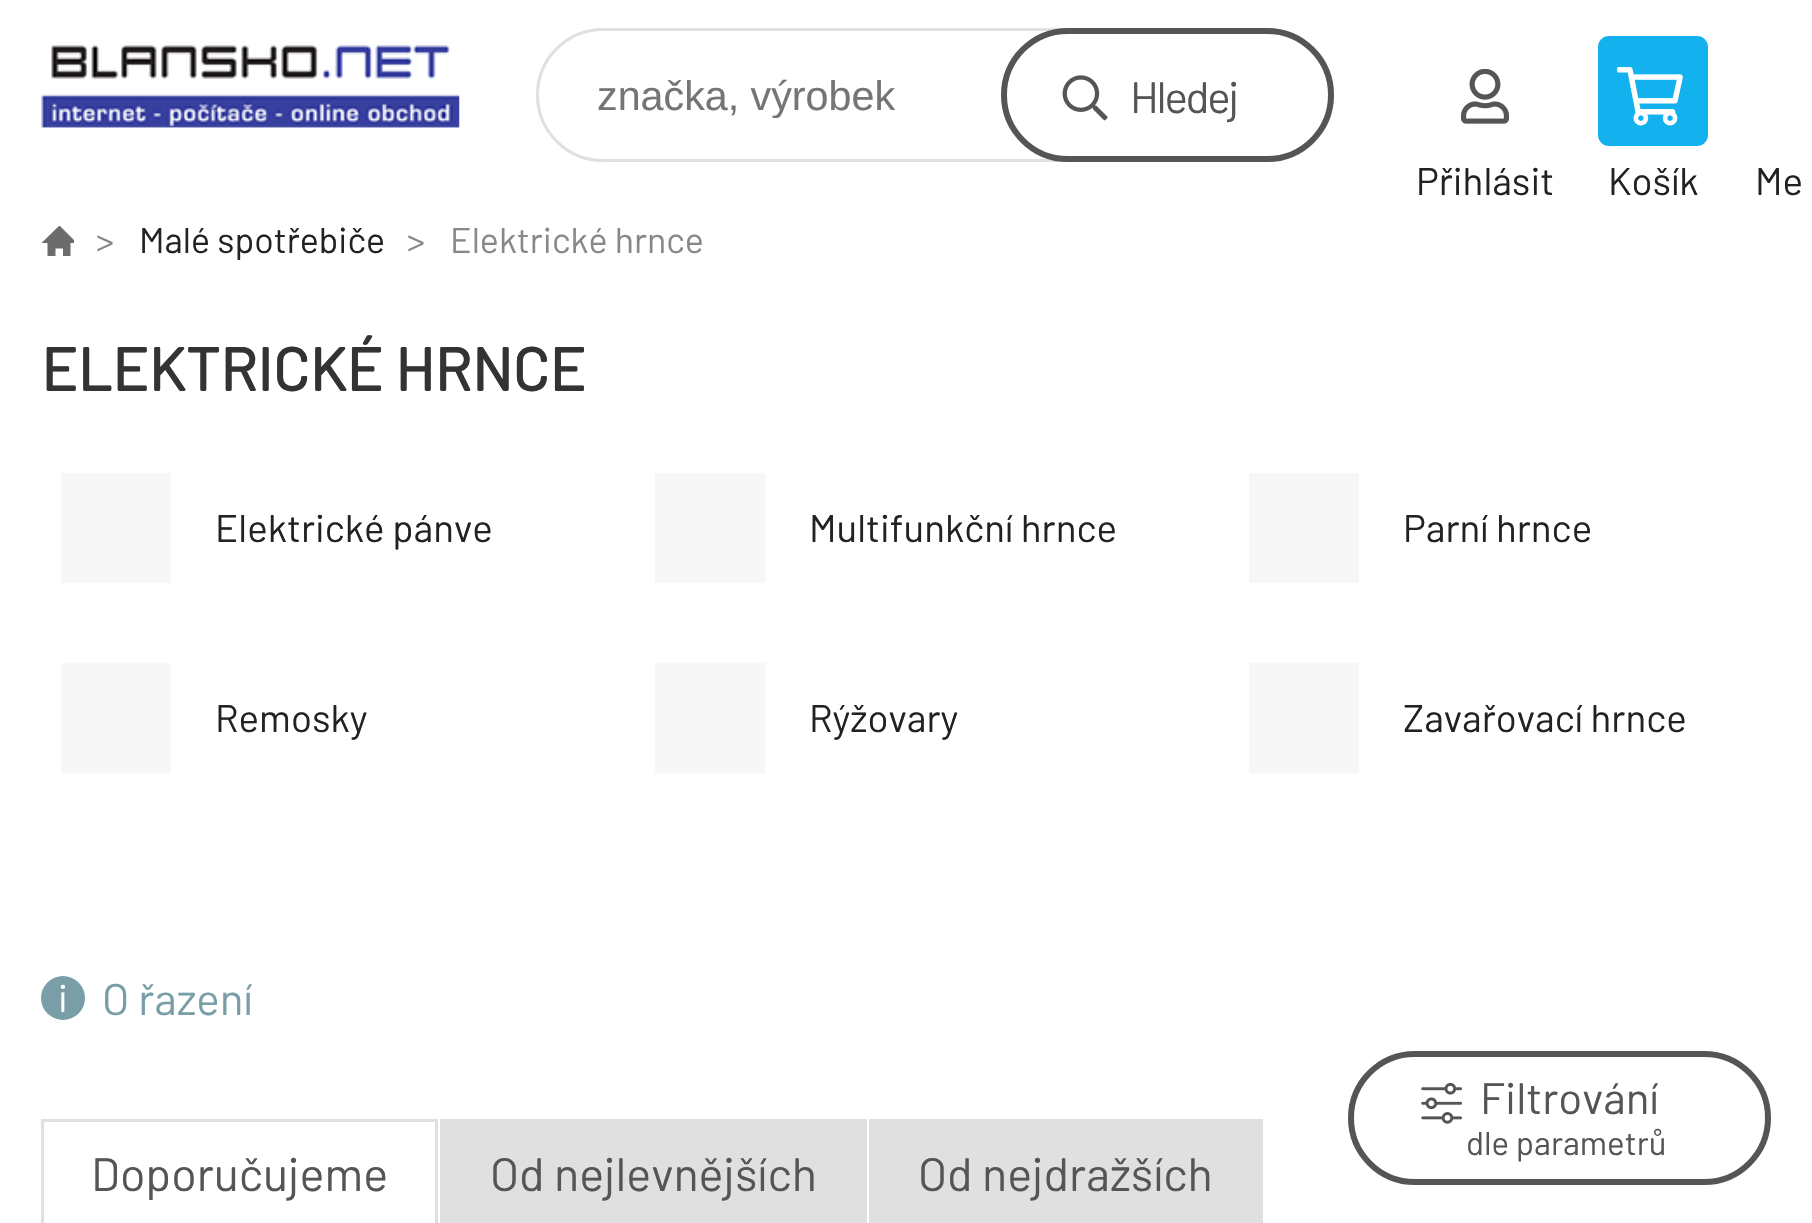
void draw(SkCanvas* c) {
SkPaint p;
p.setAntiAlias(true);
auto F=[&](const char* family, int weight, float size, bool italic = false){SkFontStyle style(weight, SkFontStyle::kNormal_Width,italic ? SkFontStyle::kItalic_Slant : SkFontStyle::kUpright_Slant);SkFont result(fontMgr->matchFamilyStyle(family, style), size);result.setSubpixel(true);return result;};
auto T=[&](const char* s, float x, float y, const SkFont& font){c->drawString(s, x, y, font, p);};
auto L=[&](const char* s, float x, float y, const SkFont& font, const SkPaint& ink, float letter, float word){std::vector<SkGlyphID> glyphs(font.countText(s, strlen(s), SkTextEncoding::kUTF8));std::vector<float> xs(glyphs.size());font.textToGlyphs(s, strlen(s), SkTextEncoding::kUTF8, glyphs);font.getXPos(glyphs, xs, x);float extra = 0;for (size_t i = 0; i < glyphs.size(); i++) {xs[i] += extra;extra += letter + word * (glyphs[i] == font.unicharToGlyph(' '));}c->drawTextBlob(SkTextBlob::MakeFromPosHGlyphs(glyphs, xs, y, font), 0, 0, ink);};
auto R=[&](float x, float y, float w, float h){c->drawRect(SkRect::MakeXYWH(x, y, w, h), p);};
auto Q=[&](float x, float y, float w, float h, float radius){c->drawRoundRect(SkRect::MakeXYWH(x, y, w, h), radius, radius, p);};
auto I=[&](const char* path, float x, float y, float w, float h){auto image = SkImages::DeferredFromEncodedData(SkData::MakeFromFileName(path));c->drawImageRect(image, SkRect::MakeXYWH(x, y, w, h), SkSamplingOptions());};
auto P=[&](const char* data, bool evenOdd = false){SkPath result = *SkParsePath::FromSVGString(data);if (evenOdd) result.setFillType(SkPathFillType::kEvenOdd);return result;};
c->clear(0xffffffff);
I("1.png",41,45,419,83);
p.setStroke(true);
p.setStrokeWidth(3);
p.setColor(0xffe0e0e0);
c->drawRoundRect(SkRect::MakeXYWH(537.5,29.5,795,131),65.5,65.5,p);
c->save();
c->clipRect(SkRect::MakeXYWH(597,72,377,46));
auto f1 = F("Liberation Sans",400,41.25);
p.setStroke(false);
p.setColor(0xff757575);
T("značka, výrobek",597,110,f1);
c->restore();
I("2.png",1062,75,46,46);
p.setStroke(true);
p.setStrokeWidth(6);
p.setColor(0xff555555);
c->drawRoundRect(SkRect::MakeXYWH(1004,31,327,128),64,64,p);
auto f2 = F("Barlow",400,44);
p.setStroke(false);
L("Hledej",1130,113,f2,p,-2.25,0);
I("3.png",1461,69,48,55);
auto f3 = F("Barlow",400,38.5);
p.setColor(0xff222222);
T("Přihlásit",1416,195,f3);
p.setColor(0xff14b1ef);
Q(1598,36,110,110,11);
I("4.png",1617,67,66,59);
p.setColor(0xff222222);
T("Košík",1608,195,f3);
T("Me",1755,195,f3);
c->save();
c->clipRect(SkRect::MakeXYWH(41,226,33,30));
p.setColor(0xff6c6c6c);
c->drawPath(P("M59.5 225.5l-18 17.5h6v13.5h8v-8h7.5v8h7.5v-13.5h6.5z"),p);
c->restore();
auto f4 = F("Barlow",400,35.75);
p.setColor(0xff888888);
T(">",96,253,f4);
p.setColor(0xff222222);
T("Malé spotřebiče",139,253,f4);
p.setColor(0xff888888);
T(">",407,253,f4);
T("Elektrické hrnce",450,253,f4);
auto f5 = F("Barlow",700,60.5);
p.setColor(0xff333333);
T("ELEKTRICKÉ HRNCE",41,391,f5);
p.setColor(0xfff7f7f7);
R(61,473,110,110);
p.setColor(0xff222222);
T("Elektrické pánve",215,542,f3);
p.setColor(0xfff7f7f7);
R(655,473,110,110);
p.setColor(0xff222222);
T("Multifunkční hrnce",809,542,f3);
p.setColor(0xfff7f7f7);
R(1249,473,110,110);
p.setColor(0xff222222);
T("Parní hrnce",1403,542,f3);
p.setColor(0xfff7f7f7);
R(61,663,110,110);
p.setColor(0xff222222);
T("Remosky",215,732,f3);
p.setColor(0xfff7f7f7);
R(655,663,110,110);
p.setColor(0xff222222);
T("Rýžovary",809,732,f3);
p.setColor(0xfff7f7f7);
R(1249,663,110,110);
p.setColor(0xff222222);
T("Zavařovací hrnce",1403,732,f3);
p.setColor(0xff799ea7);
c->drawCircle(63,998,22,p);
p.setColor(0xffffffff);
T("i",58,1012,f3);
p.setColor(0xff799ea7);
T("O řazení",102,1015,f2);
I("5.png",1421,1082,41,42);
p.setStroke(true);
p.setColor(0xff555555);
c->drawRoundRect(SkRect::MakeXYWH(1351,1054,417,128),64,64,p);
p.setStroke(false);
T("Filtrování",1480,1114,f2);
auto f6 = F("Barlow",400,33);
T("dle parametrů",1466,1155,f6);
p.setColor(0xffe0e0e0);
R(41,1119,396,3);
R(435,1119,3,104);
R(41,1119,3,104);
auto f7 = F("Barlow",400,46.75);
p.setColor(0xff555555);
T("Doporučujeme",91,1191,f7);
p.setColor(0xffe0e0e0);
R(440,1119,427,104);
p.setColor(0xff555555);
T("Od nejlevnějších",490,1191,f7);
p.setColor(0xffe0e0e0);
R(869,1119,394,104);
p.setColor(0xff555555);
T("Od nejdražších",918,1191,f7);
}
